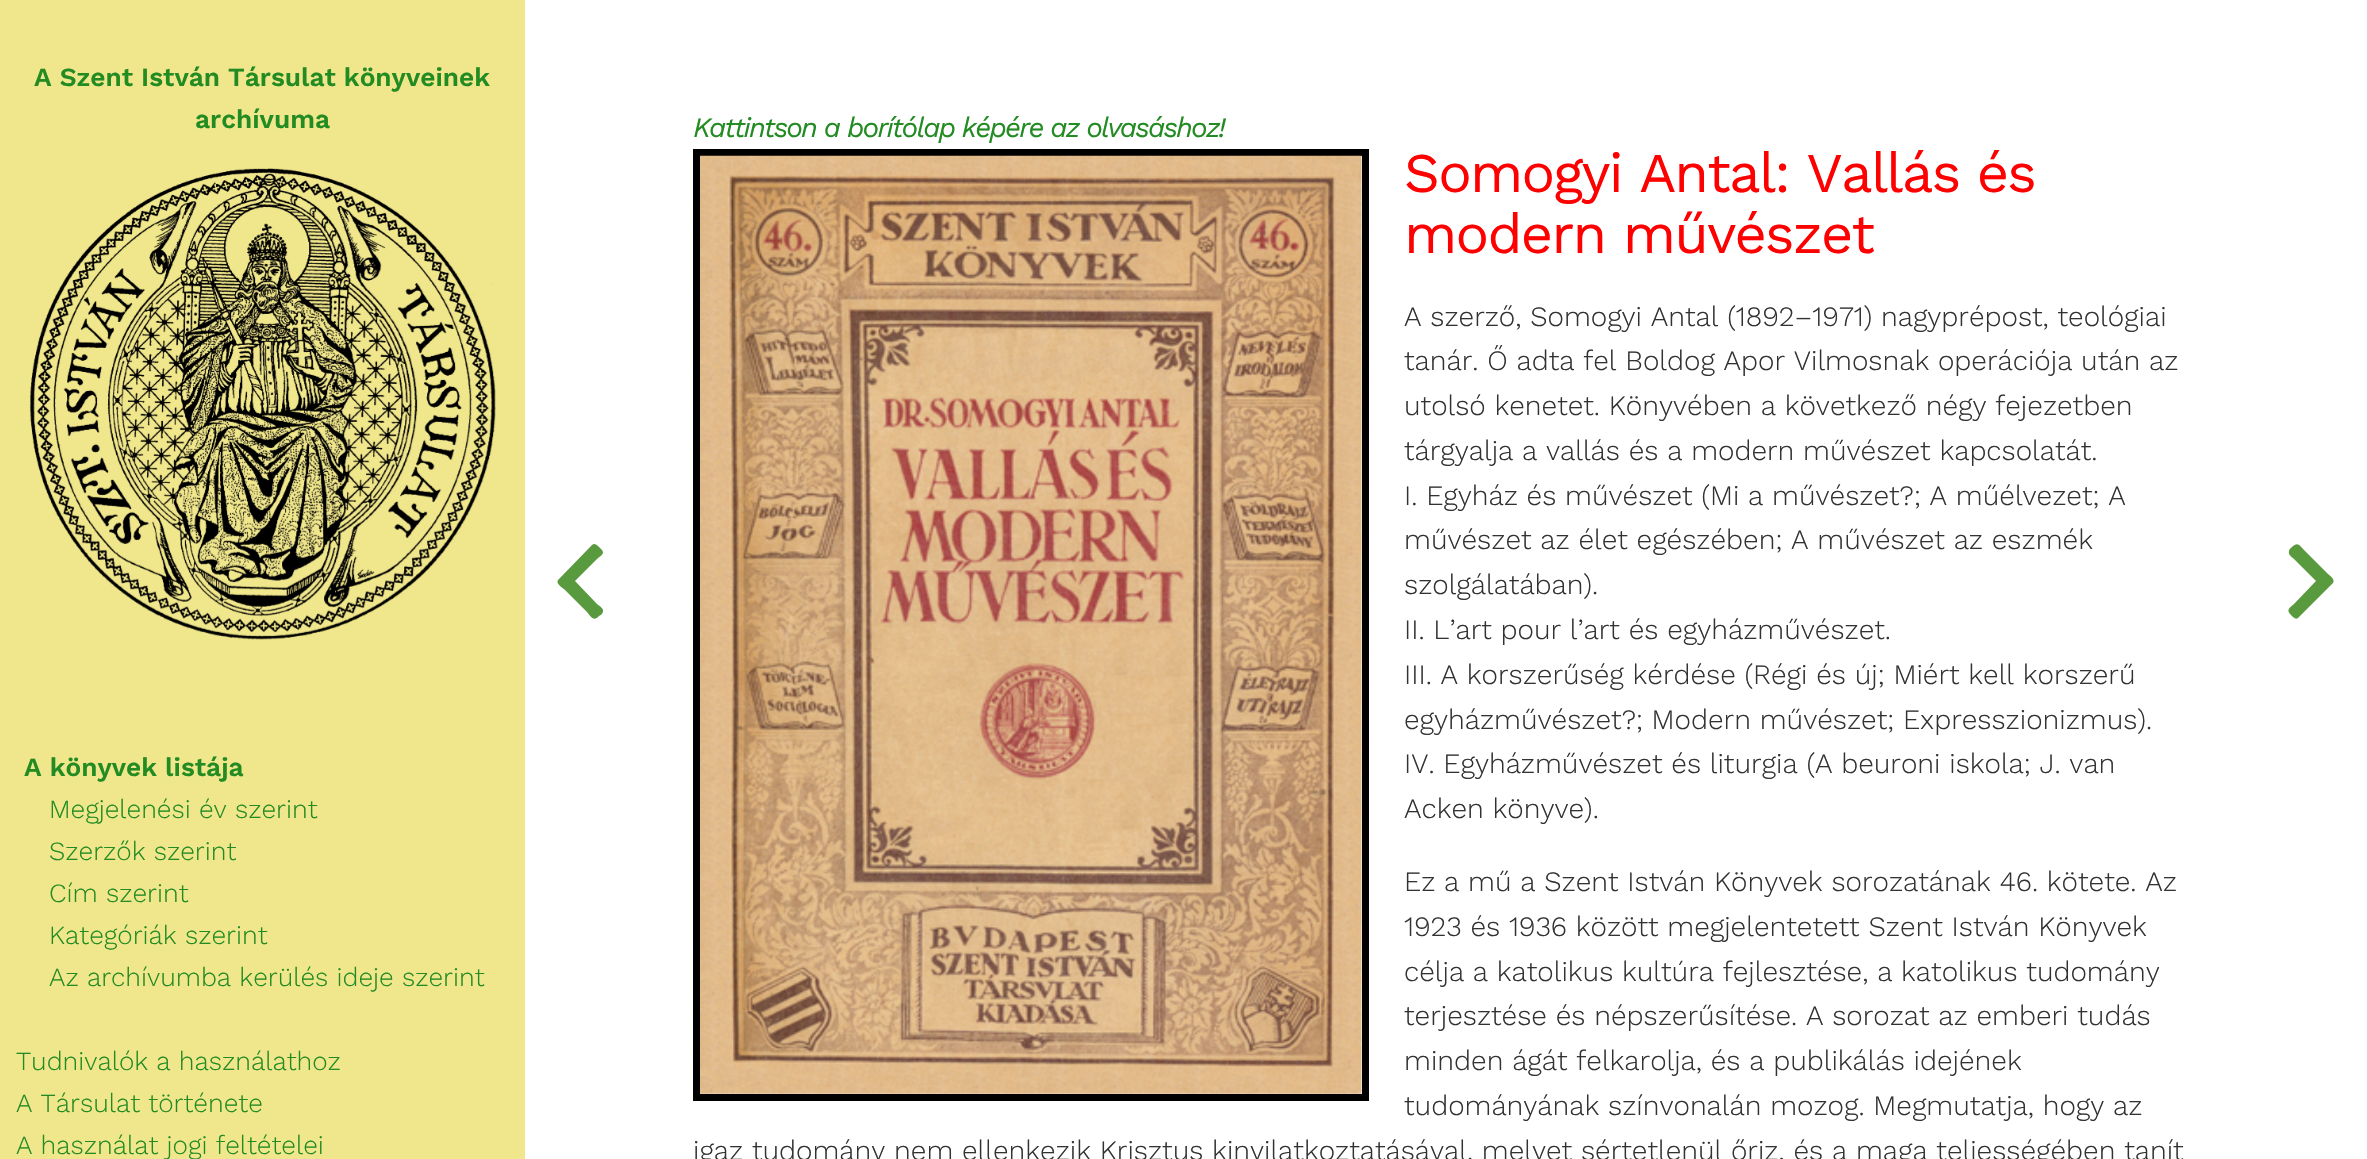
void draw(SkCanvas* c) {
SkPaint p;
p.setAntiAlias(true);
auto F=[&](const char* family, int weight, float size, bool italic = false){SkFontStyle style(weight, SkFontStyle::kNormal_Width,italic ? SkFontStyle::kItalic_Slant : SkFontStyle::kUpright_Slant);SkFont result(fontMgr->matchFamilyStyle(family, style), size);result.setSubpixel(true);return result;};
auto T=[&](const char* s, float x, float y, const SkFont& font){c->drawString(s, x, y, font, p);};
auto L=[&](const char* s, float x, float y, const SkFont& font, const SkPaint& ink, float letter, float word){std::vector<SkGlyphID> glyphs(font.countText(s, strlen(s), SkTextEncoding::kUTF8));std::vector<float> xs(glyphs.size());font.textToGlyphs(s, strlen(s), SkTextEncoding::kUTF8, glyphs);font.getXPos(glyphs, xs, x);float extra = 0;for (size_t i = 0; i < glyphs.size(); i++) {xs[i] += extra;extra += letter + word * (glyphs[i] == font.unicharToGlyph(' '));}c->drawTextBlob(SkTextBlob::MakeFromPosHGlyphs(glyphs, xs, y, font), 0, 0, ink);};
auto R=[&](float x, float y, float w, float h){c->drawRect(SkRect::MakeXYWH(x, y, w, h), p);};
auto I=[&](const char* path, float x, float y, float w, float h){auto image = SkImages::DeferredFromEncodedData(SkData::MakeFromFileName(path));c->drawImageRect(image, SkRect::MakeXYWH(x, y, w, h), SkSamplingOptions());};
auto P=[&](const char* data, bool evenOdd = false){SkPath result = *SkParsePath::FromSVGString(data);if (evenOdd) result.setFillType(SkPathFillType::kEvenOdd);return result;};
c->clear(0xffffffff);
p.setColor(0xfff0e68c);
R(0,0,525,1159);
auto f1 = F("Work Sans",600,26.25);
p.setColor(0xff228b22);
T("A Szent István Társulat könyveinek",34,86,f1);
T("archívuma",195,128,f1);
I("1.png",29,168,467,472);
T("A könyvek listája",24,776,f1);
auto f2 = F("Work Sans",300,26.25);
T("Megjelenési év szerint",49,818,f2);
T("Szerzők szerint",49,860,f2);
T("Cím szerint",49,902,f2);
T("Kategóriák szerint",49,944,f2);
T("Az archívumba kerülés ideje szerint",49,986,f2);
T("Tudnivalók a használathoz",16,1070,f2);
T("A Társulat története",16,1112,f2);
T("A használat jogi feltételei",16,1154,f2);
auto f3 = F("Work Sans",400,28,true);
L("Kattintson a borítólap képére az olvasáshoz!",693,137,f3,p,-1.75,0);
p.setStroke(true);
p.setStrokeWidth(7);
p.setColor(0xff000000);
c->drawRect(SkRect::MakeXYWH(696.5,152.5,669,945),p);
I("2.png",700,155,662,939);
auto f4 = F("Work Sans",400,56);
p.setStroke(false);
p.setColor(0xffff0000);
L("Somogyi Antal: Vallás és",1404,192,f4,p,-1.75,0);
L("modern művészet",1404,253,f4,p,-1.75,0);
auto f5 = F("Work Sans",300,28);
p.setColor(0xff323232);
T("A szerző, Somogyi Antal (1892–1971) nagyprépost, teológiai",1404,326,f5);
T("tanár. Ő adta fel Boldog Apor Vilmosnak operációja után az",1404,370,f5);
T("utolsó kenetet. Könyvében a következő négy fejezetben",1404,415,f5);
T("tárgyalja a vallás és a modern művészet kapcsolatát.",1404,460,f5);
T("I. Egyház és művészet (Mi a művészet?; A műélvezet; A",1404,505,f5);
T("művészet az élet egészében; A művészet az eszmék",1404,549,f5);
T("szolgálatában).",1404,594,f5);
T("II. L’art pour l’art és egyházművészet.",1404,639,f5);
T("III. A korszerűség kérdése (Régi és új; Miért kell korszerű",1404,684,f5);
T("egyházművészet?; Modern művészet; Expresszionizmus).",1404,729,f5);
T("IV. Egyházművészet és liturgia (A beuroni iskola; J. van",1404,773,f5);
T("Acken könyve).",1404,818,f5);
T("Ez a mű a Szent István Könyvek sorozatának 46. kötete. Az",1404,891,f5);
T("1923 és 1936 között megjelentetett Szent István Könyvek",1404,936,f5);
T("célja a katolikus kultúra fejlesztése, a katolikus tudomány",1404,981,f5);
T("terjesztése és népszerűsítése. A sorozat az emberi tudás",1404,1025,f5);
T("minden ágát felkarolja, és a publikálás idejének",1404,1070,f5);
T("tudományának színvonalán mozog. Megmutatja, hogy az",1404,1115,f5);
T("igaz tudomány nem ellenkezik Krisztus kinyilatkoztatásával, melyet sértetlenül őriz, és a maga teljességében tanít",693,1160,f5);
p.setColor(0xff599a3e);
c->drawPath(P("M559 579l33-34c3-3 6 1 8 3c6 5 2 7-3 11l-22 22l22 23c2 2 7 4 6 8c-1 2-2 3-4 4c-5 6-8 1-12-4l-22-22c-2-2-11-7-6-11z"),p);
c->drawPath(P("M2332 584l-33 33c-3 4-6 0-8-2c-5-5-2-7 3-11l22-23l-22-22c-2-2-6-4-5-8c0-2 2-3 3-4c6-6 8-1 13 4l22 22c2 2 10 7 5 11z"),p);
}
